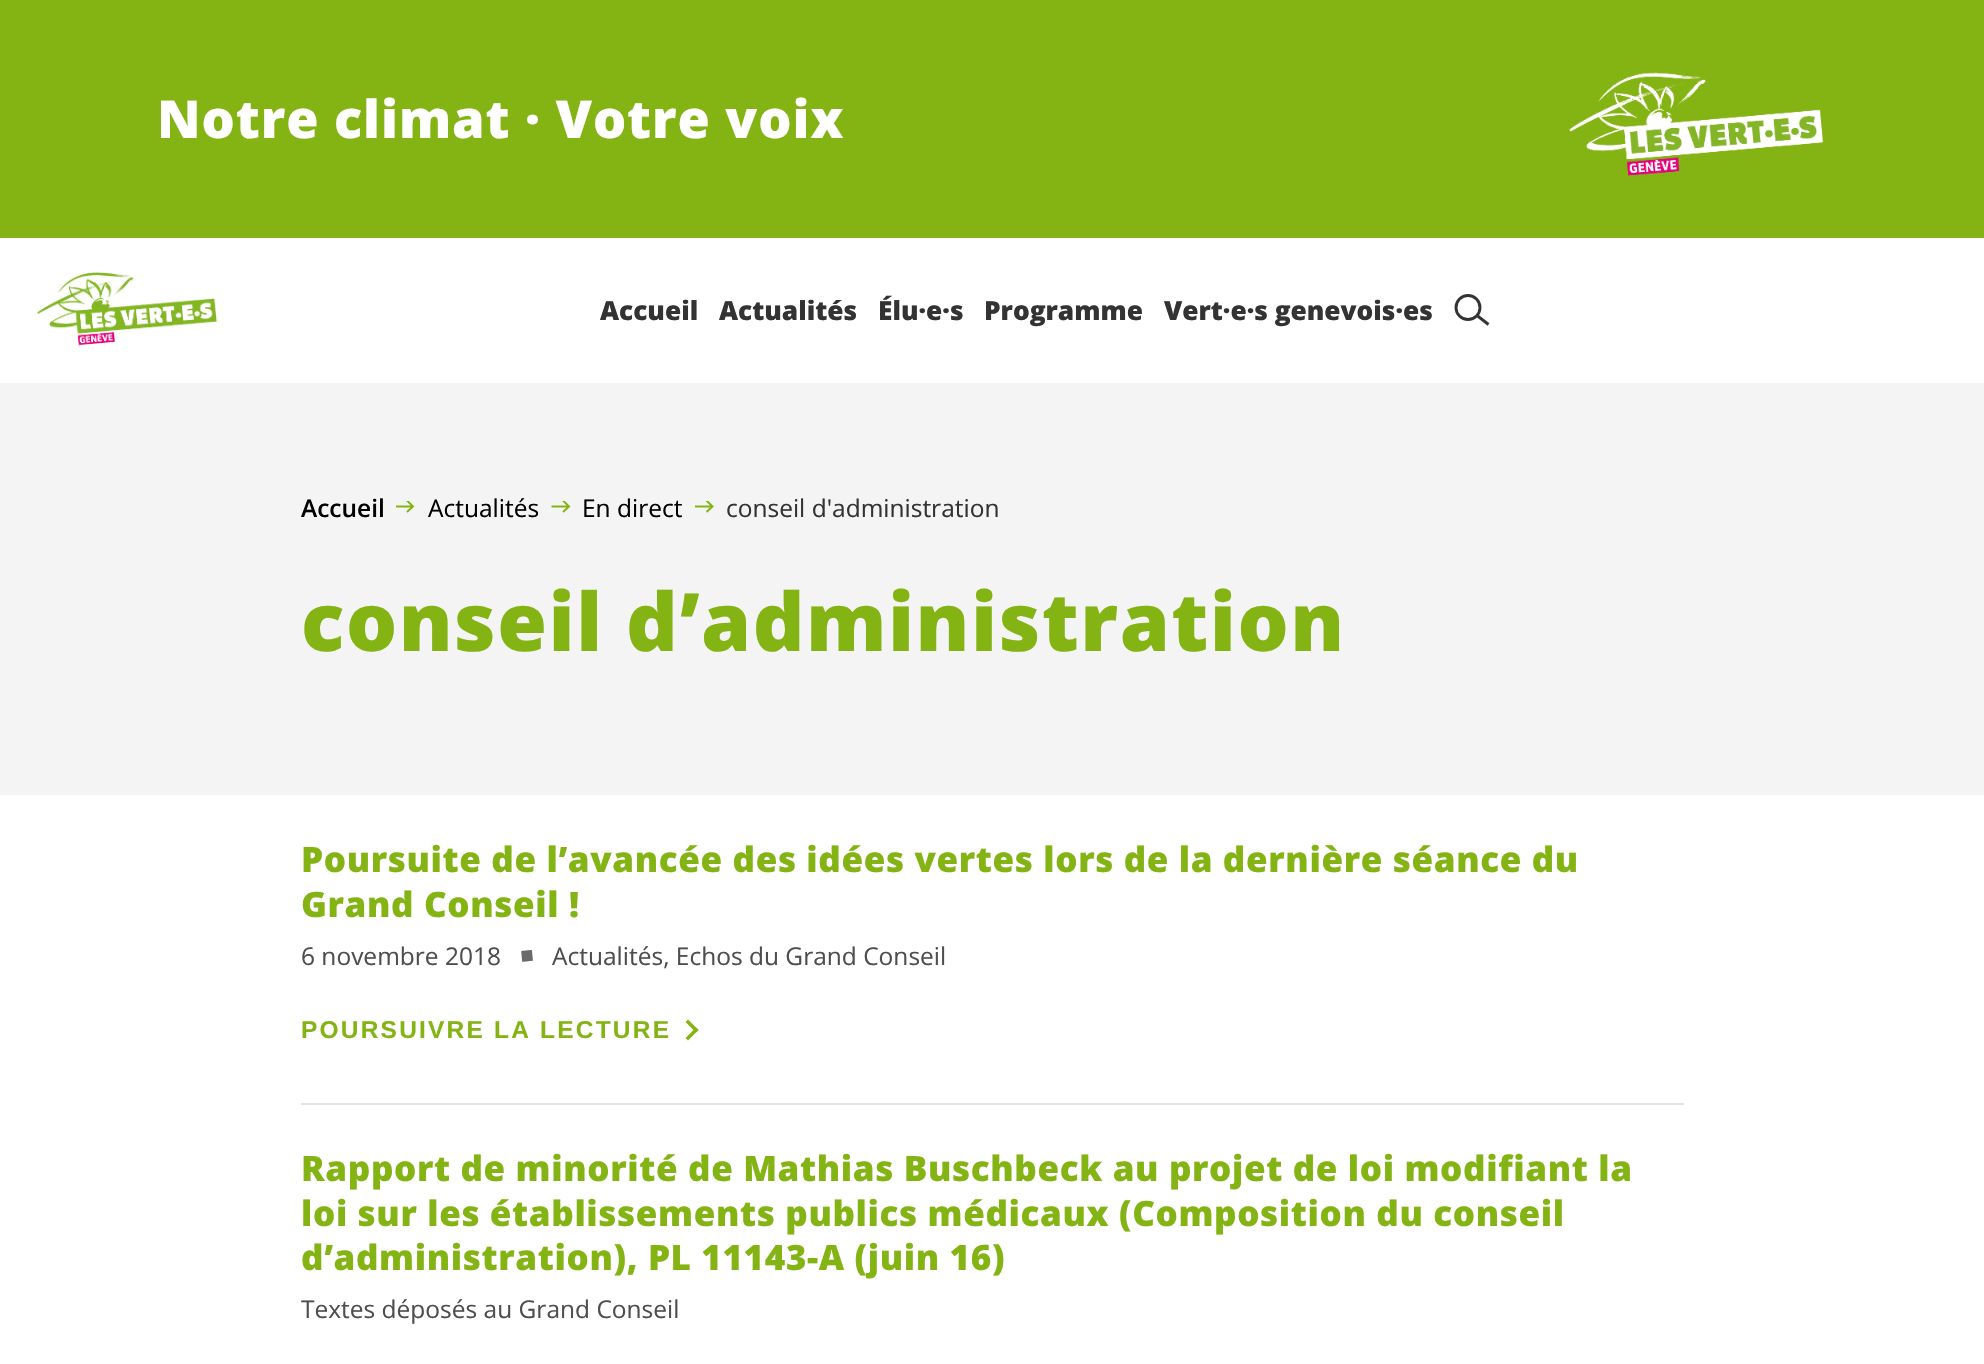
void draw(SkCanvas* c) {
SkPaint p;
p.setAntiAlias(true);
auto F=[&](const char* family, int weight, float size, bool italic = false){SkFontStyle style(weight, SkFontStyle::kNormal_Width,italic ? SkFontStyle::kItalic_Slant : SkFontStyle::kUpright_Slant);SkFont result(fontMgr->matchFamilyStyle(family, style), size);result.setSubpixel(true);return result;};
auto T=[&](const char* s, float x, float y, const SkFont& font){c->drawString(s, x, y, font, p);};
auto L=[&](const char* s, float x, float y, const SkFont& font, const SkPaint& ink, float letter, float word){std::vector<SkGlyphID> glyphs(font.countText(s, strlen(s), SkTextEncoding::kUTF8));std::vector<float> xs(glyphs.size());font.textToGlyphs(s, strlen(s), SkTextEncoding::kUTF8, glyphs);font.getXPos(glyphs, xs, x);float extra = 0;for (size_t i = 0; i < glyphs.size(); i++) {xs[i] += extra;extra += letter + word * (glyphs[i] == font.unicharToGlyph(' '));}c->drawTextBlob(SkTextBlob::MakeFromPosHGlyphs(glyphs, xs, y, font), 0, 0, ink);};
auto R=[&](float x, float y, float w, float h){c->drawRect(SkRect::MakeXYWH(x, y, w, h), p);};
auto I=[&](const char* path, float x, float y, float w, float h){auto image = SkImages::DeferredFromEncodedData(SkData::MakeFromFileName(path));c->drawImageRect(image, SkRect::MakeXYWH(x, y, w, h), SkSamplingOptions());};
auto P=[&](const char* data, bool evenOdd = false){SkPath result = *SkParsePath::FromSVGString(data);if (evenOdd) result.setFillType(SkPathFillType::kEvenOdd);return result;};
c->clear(0xffffffff);
p.setColor(0xff84b414);
R(0,0,1984,238);
auto f1 = F("Open Sans",800,52.25);
p.setColor(0xffffffff);
L("Notre climat · Votre voix",157,138,f1,p,.95,0);
I("1.png",1569,72,255,104);
I("2.png",36,272,181,74);
auto f2 = F("Open Sans",800,26.25);
p.setColor(0xff333333);
T("Accueil",600,320,f2);
T("Actualités",719,320,f2);
T("Élu·e·s",878,320,f2);
T("Programme",984,320,f2);
T("Vert·e·s genevois·es",1164,320,f2);
p.setStroke(true);
p.setStrokeWidth(2.9);
c->drawCircle(1468,307.5,12,p);
c->drawPath(P("M1477 315.5l11.5 9"),p);
p.setStroke(false);
p.setColor(0xfff4f4f4);
R(0,383,1984,412);
auto f3 = F("Open Sans",600,24.5);
p.setColor(0xff000000);
T("Accueil",301,517,f3);
c->save();
c->clipRect(SkRect::MakeXYWH(396,501,21,12));
p.setStroke(true);
p.setStrokeWidth(2);
p.setColor(0xff84b414);
c->drawPath(P("M407 500.5l6 6l-6 5.5m6-5.5h-17.5"),p);
c->restore();
auto f4 = F("Open Sans",400,24.5);
p.setStroke(false);
p.setColor(0xff000000);
T("Actualités",428,517,f4);
c->save();
c->clipRect(SkRect::MakeXYWH(551,501,20,12));
p.setStroke(true);
p.setColor(0xff84b414);
c->drawPath(P("M563 500.5l6 6l-6 5.5m6-5.5h-17.5"),p);
c->restore();
p.setStroke(false);
p.setColor(0xff000000);
T("En direct",582,517,f4);
c->save();
c->clipRect(SkRect::MakeXYWH(695,501,19,12));
p.setStroke(true);
p.setColor(0xff84b414);
c->drawPath(P("M706.5 500.5l6 6l-6 5.5m6-5.5h-17.5"),p);
c->restore();
p.setStroke(false);
p.setColor(0xff333333);
T("conseil d'administration",726,517,f4);
auto f5 = F("Open Sans",800,80.5);
p.setColor(0xff84b414);
L("conseil d’administration",301,651,f5,p,1.5,0);
p.setColor(0xffe2e2e2);
R(301,1103,1383,2);
auto f6 = F("Open Sans",800,35);
p.setColor(0xff84b414);
L("Poursuite de l’avancée des idées vertes lors de la dernière séance du",301,872,f6,p,.63,0);
L("Grand Conseil !",301,917,f6,p,.63,0);
p.setColor(0xff4e4e4e);
T("6 novembre 2018",301,965,f4);
auto f7 = F("Liberation Sans",400,22);
p.setColor(0xff6a6a6a);
c->save();
c->rotate(-5,521,963);
T("■",521,963,f7);
c->restore();
p.setColor(0xff4e4e4e);
T("Actualités, Echos du Grand Conseil",552,965,f4);
auto f8 = F("Liberation Sans",700,24.5);
p.setColor(0xff84b414);
L("POURSUIVRE LA LECTURE",301,1038,f8,p,2.2,0);
c->drawPath(P("M688 1019.5l10.5 10.5l-2.5 2.5l-10.5-10.5z"),p);
c->drawPath(P("M696 1027.5l2.5 2.5l-10.5 10.5l-2.5-2.5z"),p);
L("Rapport de minorité de Mathias Buschbeck au projet de loi modifiant la",301,1181,f6,p,.63,0);
L("loi sur les établissements publics médicaux (Composition du conseil",301,1226,f6,p,.63,0);
L("d’administration), PL 11143-A (juin 16)",301,1270,f6,p,.63,0);
p.setColor(0xff4e4e4e);
T("Textes déposés au Grand Conseil",301,1318,f4);
}
